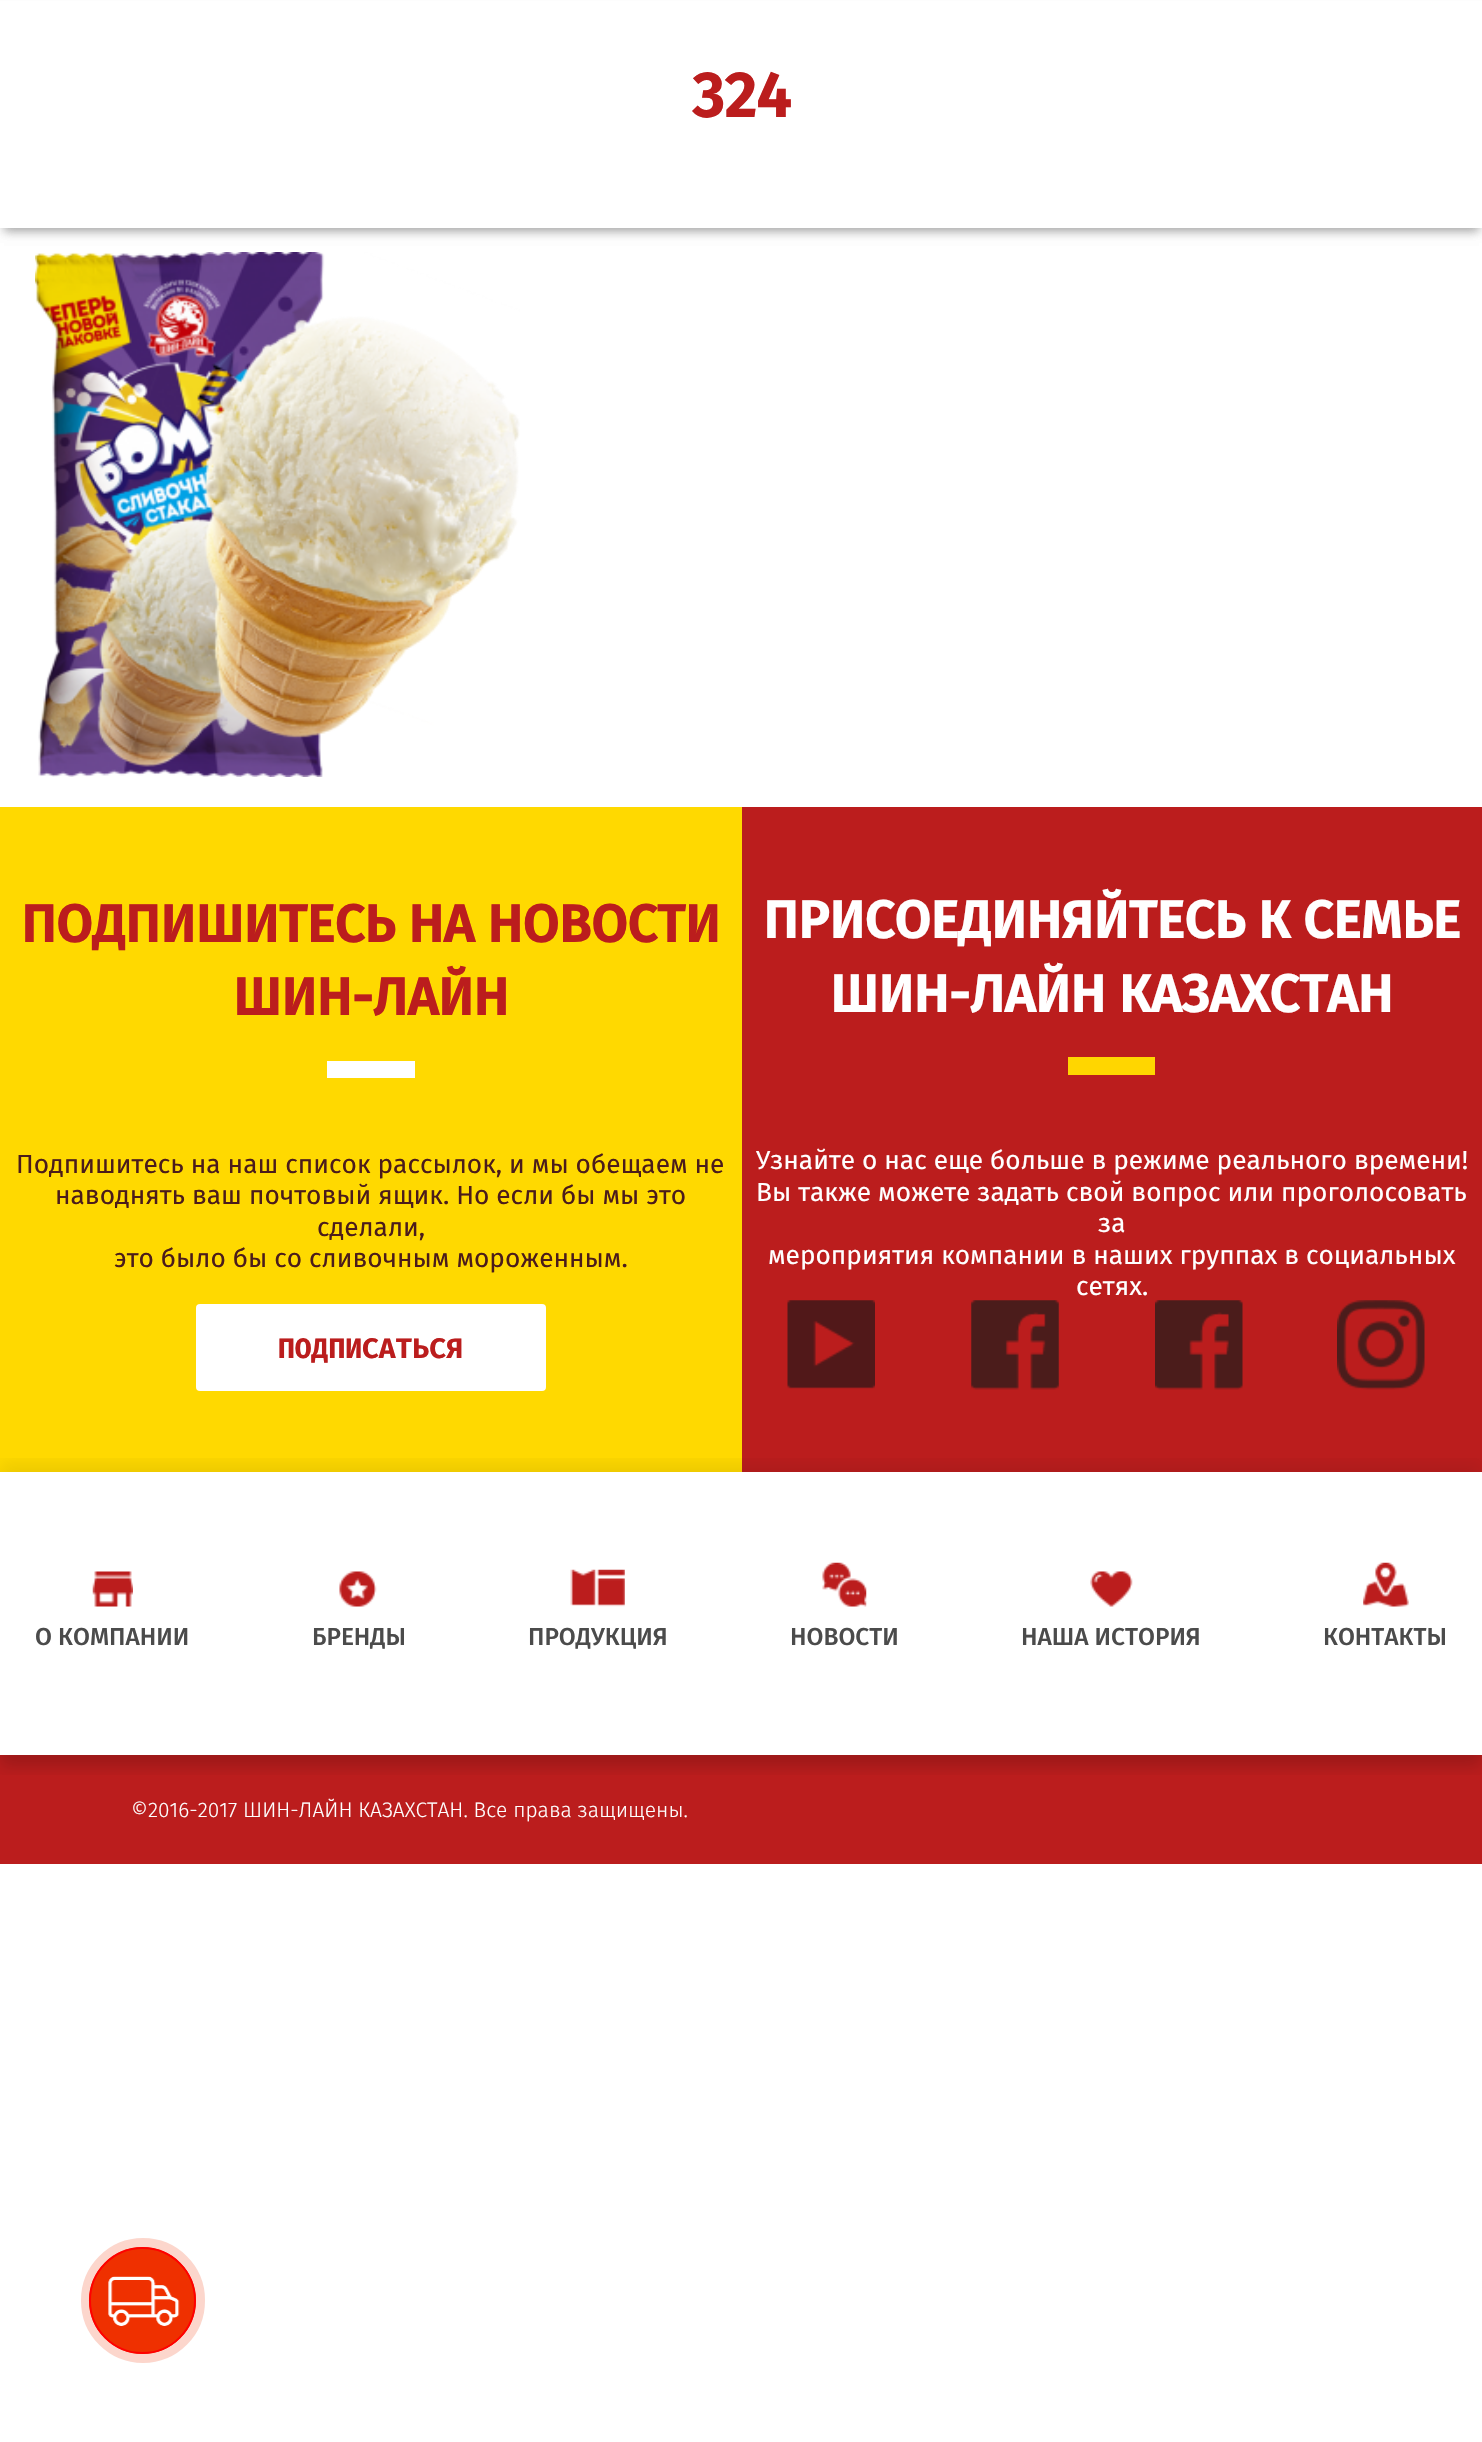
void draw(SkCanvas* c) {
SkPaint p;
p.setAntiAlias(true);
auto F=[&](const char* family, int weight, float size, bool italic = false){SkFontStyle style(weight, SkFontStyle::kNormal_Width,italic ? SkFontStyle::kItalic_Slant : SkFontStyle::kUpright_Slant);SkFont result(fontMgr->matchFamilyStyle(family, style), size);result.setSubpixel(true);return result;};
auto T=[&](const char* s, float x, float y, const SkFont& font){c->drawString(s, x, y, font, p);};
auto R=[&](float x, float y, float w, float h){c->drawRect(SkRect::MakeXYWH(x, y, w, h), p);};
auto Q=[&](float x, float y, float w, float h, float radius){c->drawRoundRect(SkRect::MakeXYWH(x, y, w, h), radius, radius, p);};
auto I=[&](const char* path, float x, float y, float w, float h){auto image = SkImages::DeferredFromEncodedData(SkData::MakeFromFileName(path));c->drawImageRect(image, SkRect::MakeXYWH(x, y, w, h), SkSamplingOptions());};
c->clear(0xffffffff);
p.setColor(0x33000000);
p.setMaskFilter(SkMaskFilter::MakeBlur(kNormal_SkBlurStyle, 5));
c->drawRect(SkRect::MakeXYWH(4,11,1475,220),p);
p.setMaskFilter(nullptr);
p.setMaskFilter(SkMaskFilter::MakeBlur(kNormal_SkBlurStyle, 5));
c->drawRect(SkRect::MakeXYWH(4,11,1475,220),p);
p.setMaskFilter(nullptr);
p.setColor(0xffffffff);
R(0,1,1482,227);
auto f1 = F("Fira Sans",700,63);
p.setColor(0xffbb1d1d);
T("324",692,117,f1);
I("1.png",35,252,485,525);
p.setColor(0xffffd900);
R(0,807,742,665);
auto f2 = F("Fira Sans",700,52.5);
p.setColor(0xffbb1d1d);
T("ПОДПИШИТЕСЬ НА НОВОСТИ",21,942,f2);
T("ШИН-ЛАЙН",233,1015,f2);
p.setColor(0xffffffff);
R(327,1061,88,17);
auto f3 = F("Fira Sans",400,26.25);
p.setColor(0xff4b1c1b);
T("Подпишитесь на наш список рассылок, и мы обещаем не",16,1173,f3);
T("наводнять ваш почтовый ящик. Но если бы мы это",55,1204,f3);
T("сделали,",317,1236,f3);
T("это было бы со сливочным мороженным.",114,1267,f3);
p.setColor(0xffffffff);
Q(196,1304,350,87,4);
auto f4 = F("Fira Mono",700,28);
p.setColor(0xffbb1d1d);
T("ПОДПИСАТЬСЯ",278,1358,f4);
R(742,807,740,665);
p.setColor(0xffffffff);
T("ПРИСОЕДИНЯЙТЕСЬ К СЕМЬЕ",763,938,f2);
T("ШИН-ЛАЙН КАЗАХСТАН",830,1012,f2);
p.setColor(0xffffd600);
R(1068,1057,87,18);
p.setColor(0xffffffff);
T("Узнайте о нас еще больше в режиме реального времени!",756,1169,f3);
T("Вы также можете задать свой вопрос или проголосовать",756,1201,f3);
T("за",1098,1232,f3);
T("мероприятия компании в наших группах в социальных",768,1264,f3);
T("сетях.",1076,1295,f3);
I("2.png",787,1300,88,89);
I("3.png",971,1300,88,90);
I("4.png",1155,1300,88,90);
I("5.png",1337,1300,88,90);
p.setColor(0xffbb1d1d);
R(0,1755,1482,109);
c->save();
c->clipRect(SkRect::MakeXYWH(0,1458,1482,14));
p.setColor(0x12000000);
p.setMaskFilter(SkMaskFilter::MakeBlur(kNormal_SkBlurStyle, 8));
c->drawRect(SkRect::MakeXYWH(0,1463,1482,284),p);
p.setMaskFilter(nullptr);
c->restore();
c->save();
c->clipRect(SkRect::MakeXYWH(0,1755,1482,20));
p.setColor(0x2b000000);
p.setMaskFilter(SkMaskFilter::MakeBlur(kNormal_SkBlurStyle, 8));
c->drawRect(SkRect::MakeXYWH(0,1482,1482,284),p);
p.setMaskFilter(nullptr);
c->restore();
I("6.png",92,1571,41,36);
auto f5 = F("Fira Sans",500,24.5);
p.setColor(0xff4b4b4b);
T("О КОМПАНИИ",35,1645,f5);
I("7.png",339,1571,38,36);
T("БРЕНДЫ",312,1645,f5);
I("8.png",570,1569,55,38);
T("ПРОДУКЦИЯ",528,1645,f5);
I("9.png",822,1562,45,45);
T("НОВОСТИ",790,1645,f5);
I("10.png",1090,1571,43,36);
T("НАША ИСТОРИЯ",1021,1645,f5);
I("11.png",1363,1562,46,45);
T("КОНТАКТЫ",1323,1645,f5);
auto f6 = F("Fira Sans",300,21);
p.setColor(0xffffffff);
T("©2016-2017 ШИН-ЛАЙН КАЗАХСТАН. Все права защищены.",131,1817,f6);
p.setStroke(true);
p.setStrokeWidth(9);
p.setColor(0xfffcd6cc);
c->drawRoundRect(SkRect::MakeXYWH(85.5,2242.5,115,116),57.5,57.5,p);
p.setStroke(false);
p.setColor(0xffef3000);
c->drawCircle(142.5,2300.5,53.5,p);
I("12.png",108,2276,72,50);
p.setStroke(true);
p.setStrokeWidth(2);
p.setColor(0xffff0000);
c->drawCircle(142.5,2300.5,52.5,p);
}
